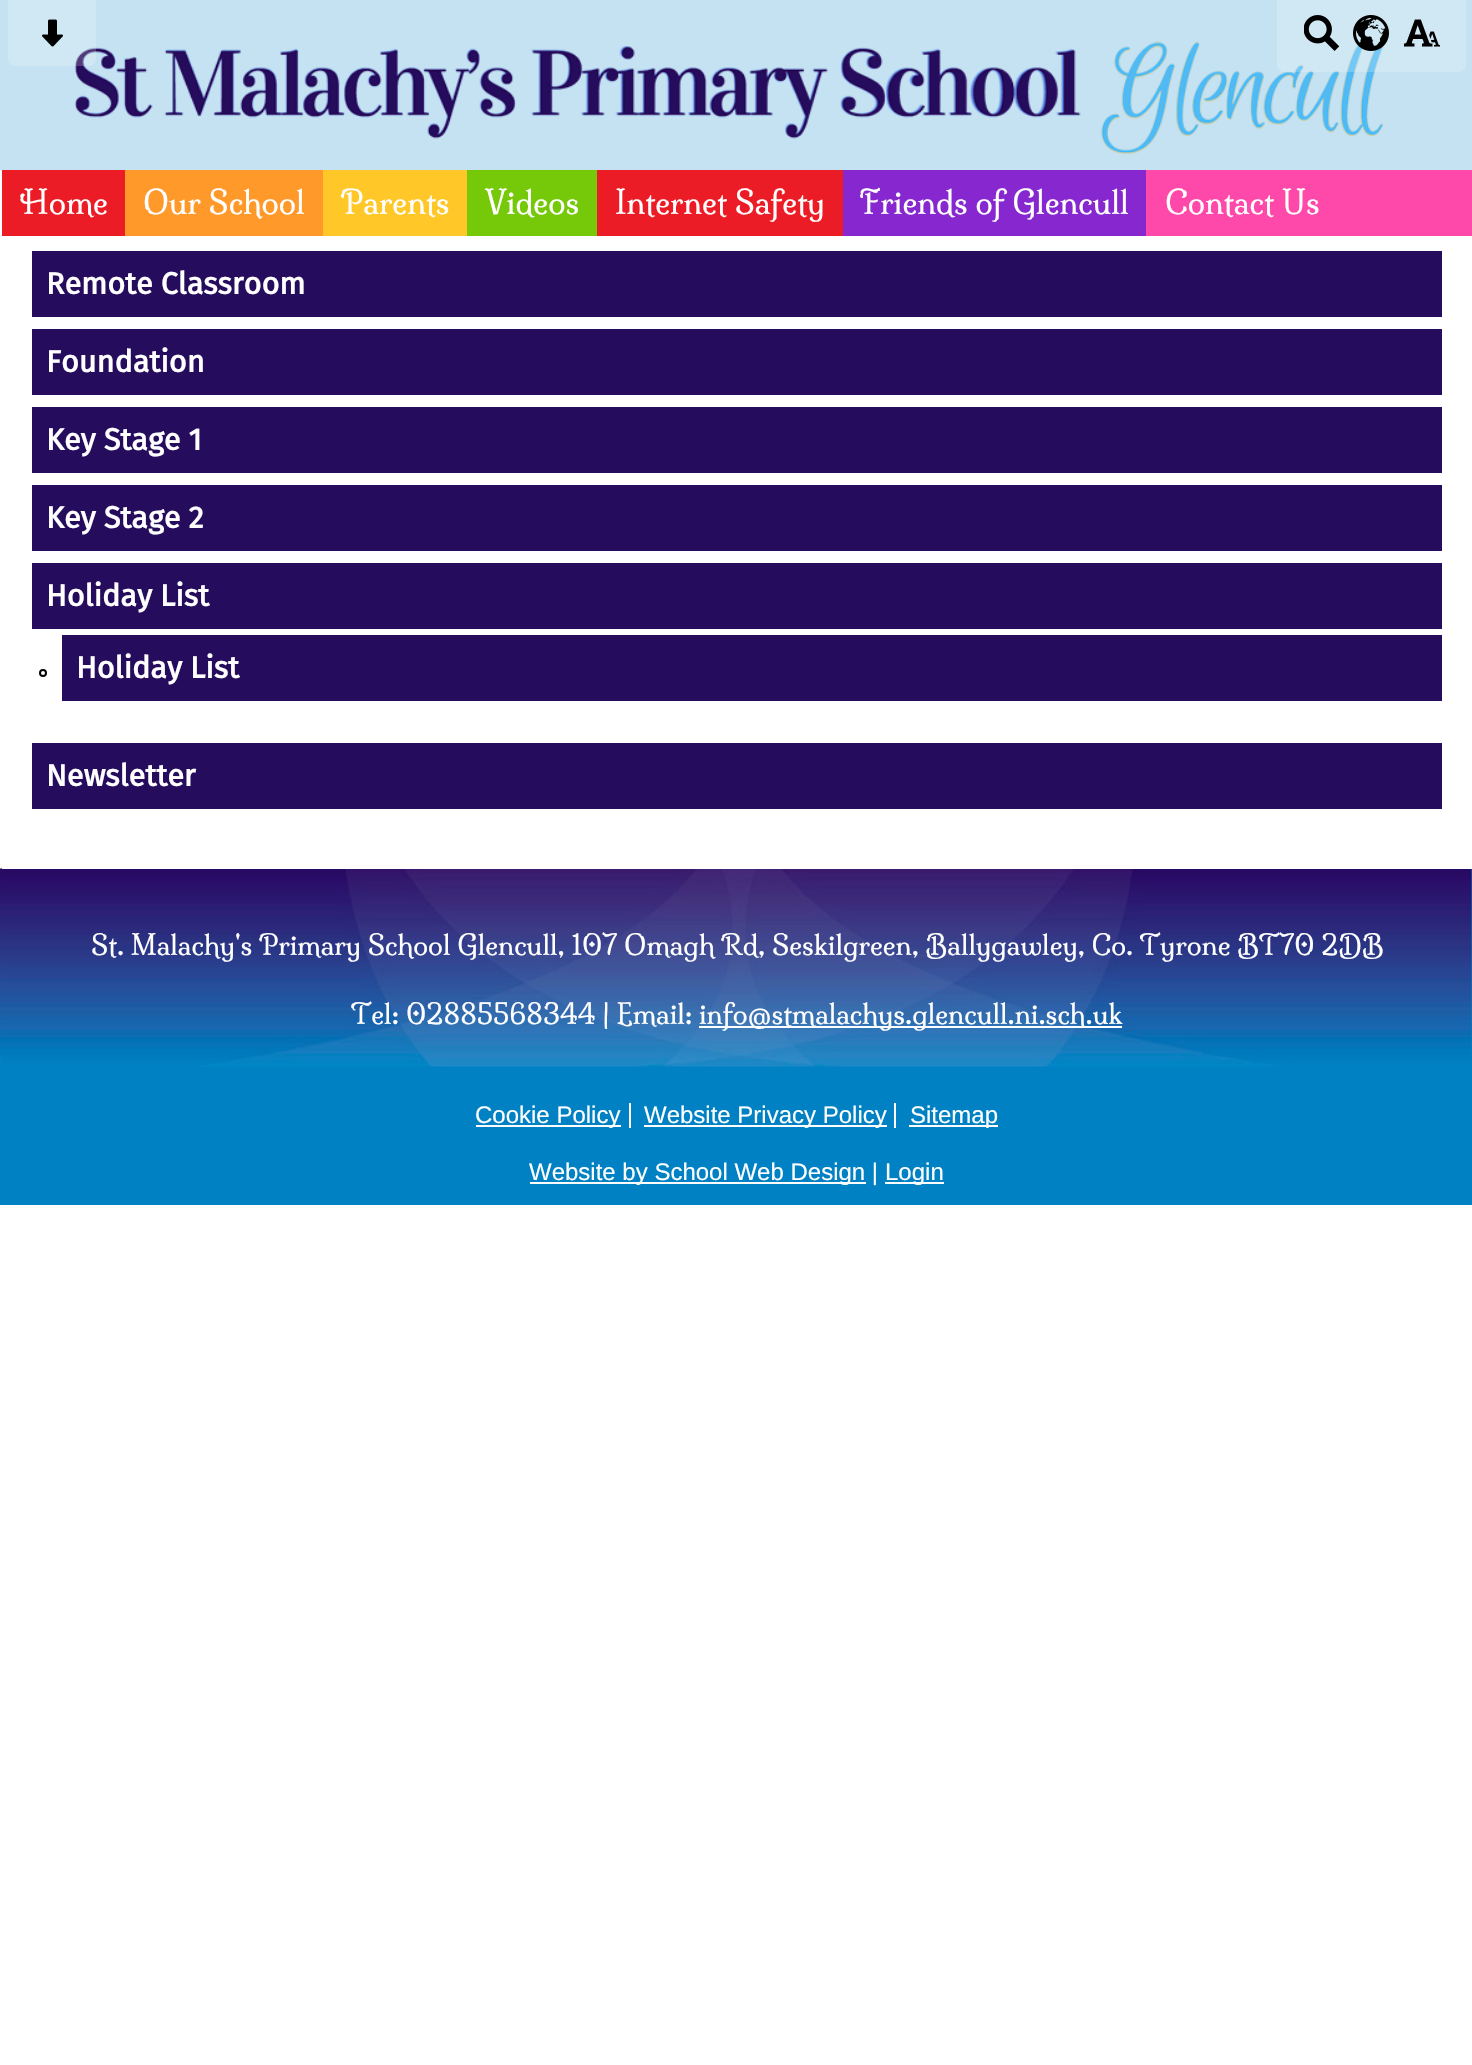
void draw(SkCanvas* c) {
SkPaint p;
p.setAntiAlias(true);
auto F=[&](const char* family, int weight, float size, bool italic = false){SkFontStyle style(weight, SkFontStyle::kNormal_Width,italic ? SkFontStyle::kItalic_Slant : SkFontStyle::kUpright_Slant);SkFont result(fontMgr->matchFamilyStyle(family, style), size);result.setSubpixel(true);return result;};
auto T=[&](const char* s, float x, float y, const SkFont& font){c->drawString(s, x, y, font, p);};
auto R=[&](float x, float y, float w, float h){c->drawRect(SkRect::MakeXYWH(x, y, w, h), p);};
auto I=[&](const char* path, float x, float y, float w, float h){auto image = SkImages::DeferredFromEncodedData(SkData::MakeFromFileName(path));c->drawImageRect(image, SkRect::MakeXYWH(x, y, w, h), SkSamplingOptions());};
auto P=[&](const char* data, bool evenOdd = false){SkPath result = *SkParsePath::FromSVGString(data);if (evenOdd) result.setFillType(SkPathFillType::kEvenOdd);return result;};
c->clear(0xffffffff);
p.setColor(0xffc5e2f2);
R(0,0,1472,170);
I("1.png",74,41,1311,114);
p.setColor(0x33ffffff);
c->drawPath(P("M8 0h88v58c0 4.5-3.5 8-8 8h-72c-4.5 0-8-3.5-8-8z"),p);
I("2.png",42,19,21,28);
c->drawPath(P("M1277 0h189v64c0 4.5-3.5 8-8 8h-173c-4.5 0-8-3.5-8-8z"),p);
I("3.png",1304,15,36,36);
I("4.png",1353,15,36,36);
I("5.png",1404,19,36,28);
p.setColor(0xfffe49aa);
R(1146,170,326,66);
p.setColor(0xffeb1c26);
R(2,170,123,66);
auto f1 = F("Milonga",400,31.25);
p.setColor(0xffffffff);
T("Home",20,214,f1);
p.setColor(0xffff992a);
R(125,170,198,66);
p.setColor(0xffffffff);
T("Our School",143,214,f1);
p.setColor(0xffffc728);
R(323,170,144,66);
p.setColor(0xffffffff);
T("Parents",341,214,f1);
p.setColor(0xff76c909);
R(467,170,130,66);
p.setColor(0xffffffff);
T("Videos",485,214,f1);
p.setColor(0xffeb1c26);
R(597,170,246,66);
p.setColor(0xffffffff);
T("Internet Safety",615,214,f1);
p.setColor(0xff8727cf);
R(843,170,303,66);
p.setColor(0xffffffff);
T("Friends of Glencull",860,214,f1);
T("Contact Us",1165,214,f1);
p.setColor(0xff0081c3);
R(0,1056,1472,149);
I("6.png",0,868,2,188);
R(2,869,1470,187);
I("7.png",1,868,1471,199);
p.setColor(0xffffffff);
R(2,868,1470,1);
p.setColor(0xff250c5d);
R(32,251,1410,66);
auto f2 = F("Fira Sans",700,30.5);
p.setColor(0xffffffff);
T("Remote Classroom",46,294,f2);
p.setColor(0xff250c5d);
R(32,329,1410,66);
p.setColor(0xffffffff);
T("Foundation",46,372,f2);
p.setColor(0xff250c5d);
R(32,407,1410,66);
p.setColor(0xffffffff);
T("Key Stage 1",46,450,f2);
p.setColor(0xff250c5d);
R(32,485,1410,66);
p.setColor(0xffffffff);
T("Key Stage 2",46,528,f2);
p.setColor(0xff250c5d);
R(32,563,1410,66);
p.setColor(0xffffffff);
T("Holiday List",46,606,f2);
p.setStroke(true);
p.setStrokeWidth(2);
p.setColor(0xff000000);
c->drawCircle(43,673,3,p);
p.setStroke(false);
p.setColor(0xff250c5d);
R(62,635,1380,66);
p.setColor(0xffffffff);
T("Holiday List",76,678,f2);
p.setColor(0xff250c5d);
R(32,743,1410,66);
p.setColor(0xffffffff);
T("Newsletter",46,786,f2);
auto f3 = F("Milonga",400,26.9);
T("St. Malachy's Primary School Glencull, 107 Omagh Rd, Seskilgreen, Ballygawley, Co. Tyrone BT70 2DB",91,955,f3);
T("Tel: 02885568344 | Email:",351,1024,f3);
R(699,1026,423,2);
T("info@stmalachys.glencull.ni.sch.uk",699,1024,f3);
R(476,1125,145,2);
auto f4 = F("Liberation Sans",400,24);
T("Cookie Policy",475,1123,f4);
R(629,1103,2,25);
R(644,1125,243,2);
T("Website Privacy Policy",644,1123,f4);
R(894,1103,2,25);
R(909,1125,89,2);
T("Sitemap",910,1123,f4);
R(530,1182,336,2);
T("Website by School Web Design |",529,1180,f4);
R(885,1182,59,2);
T("Login",885,1180,f4);
}
